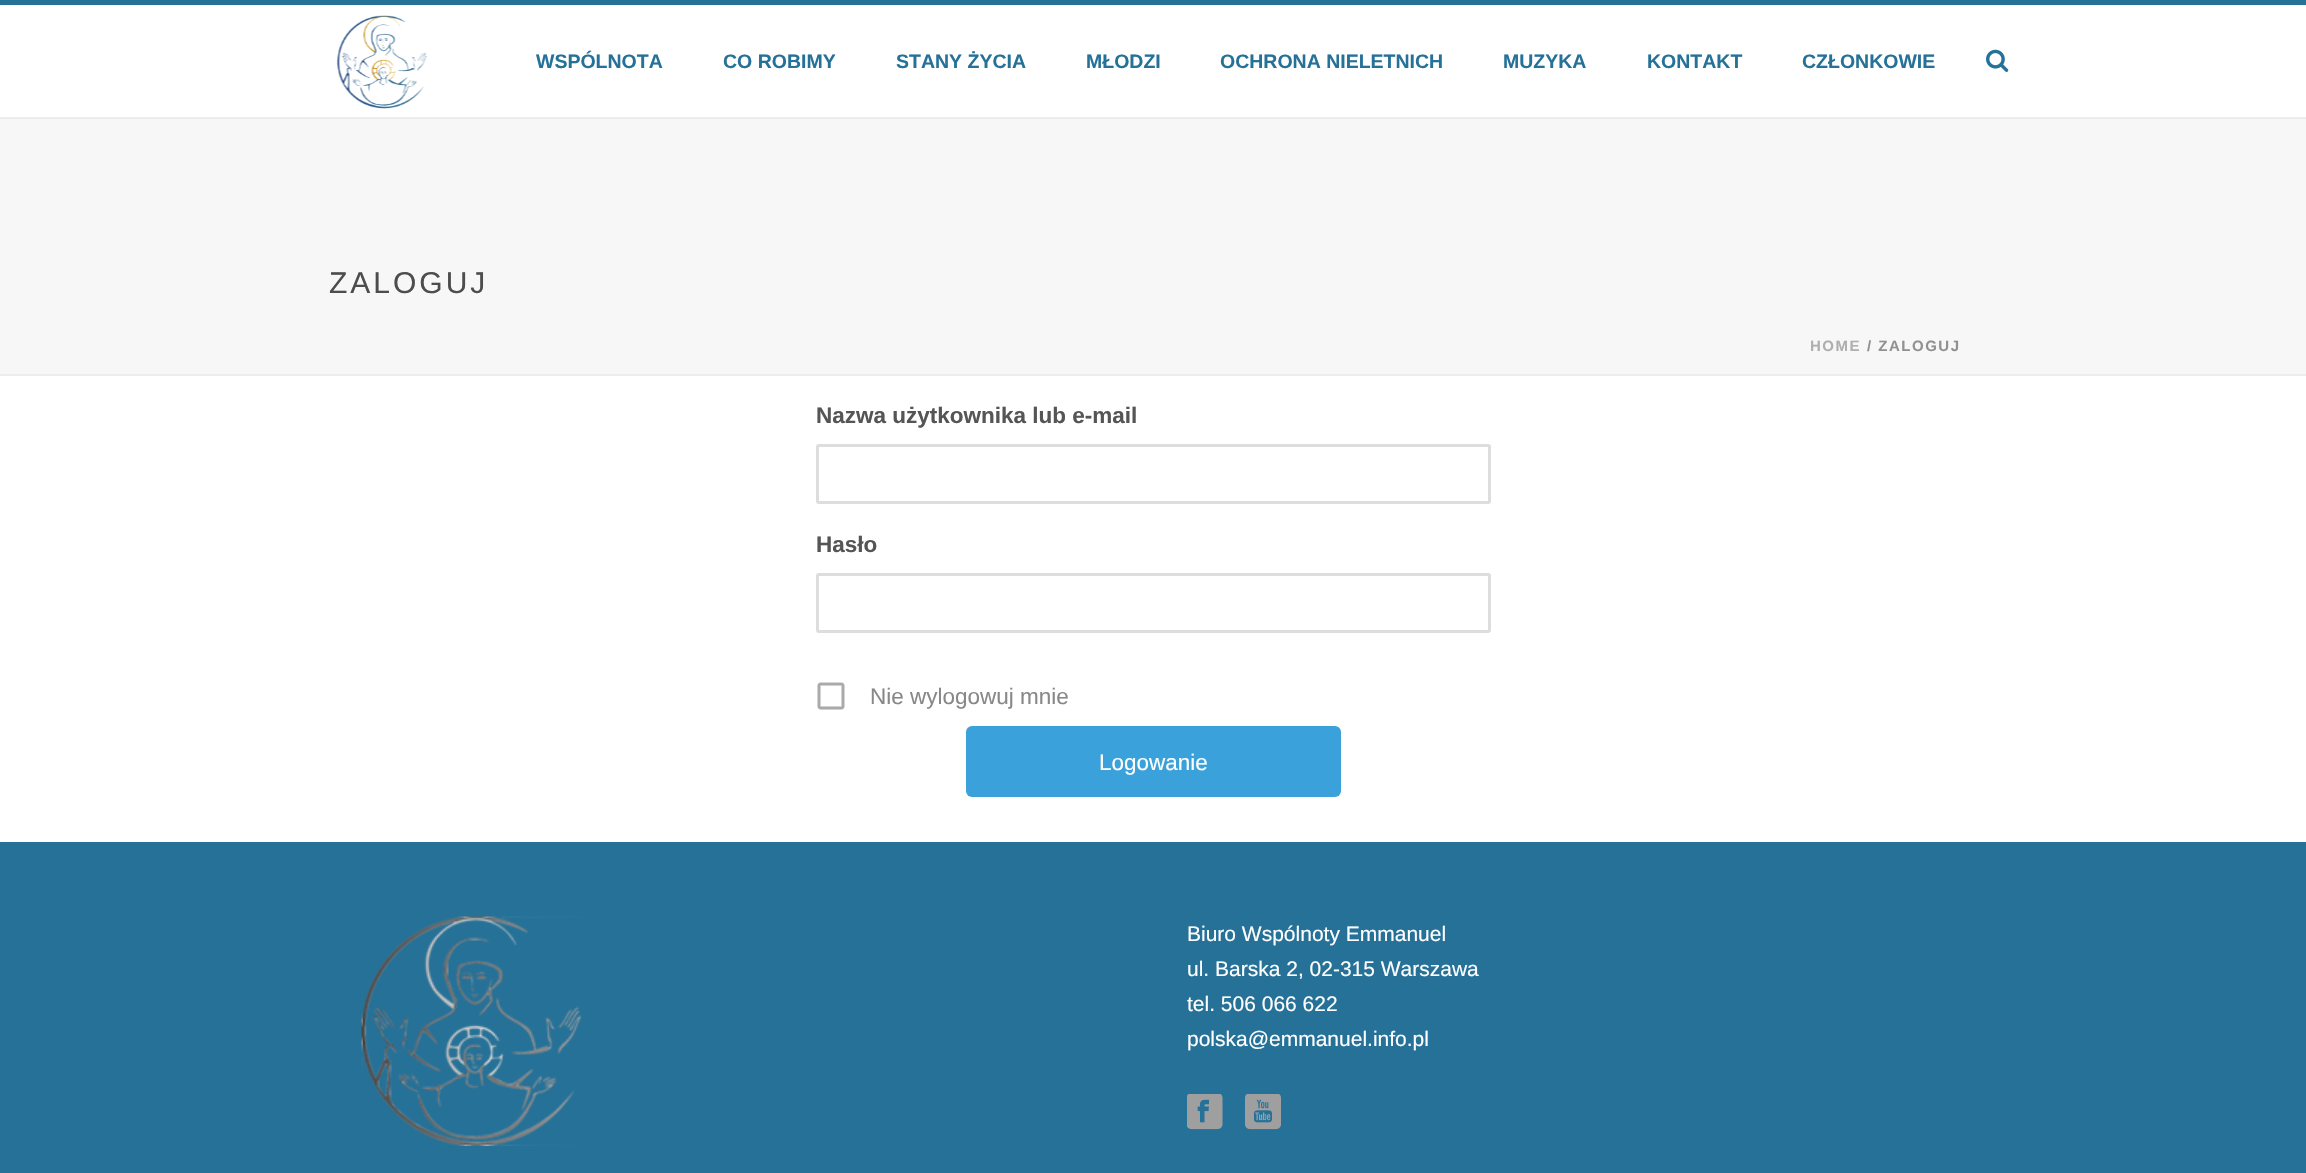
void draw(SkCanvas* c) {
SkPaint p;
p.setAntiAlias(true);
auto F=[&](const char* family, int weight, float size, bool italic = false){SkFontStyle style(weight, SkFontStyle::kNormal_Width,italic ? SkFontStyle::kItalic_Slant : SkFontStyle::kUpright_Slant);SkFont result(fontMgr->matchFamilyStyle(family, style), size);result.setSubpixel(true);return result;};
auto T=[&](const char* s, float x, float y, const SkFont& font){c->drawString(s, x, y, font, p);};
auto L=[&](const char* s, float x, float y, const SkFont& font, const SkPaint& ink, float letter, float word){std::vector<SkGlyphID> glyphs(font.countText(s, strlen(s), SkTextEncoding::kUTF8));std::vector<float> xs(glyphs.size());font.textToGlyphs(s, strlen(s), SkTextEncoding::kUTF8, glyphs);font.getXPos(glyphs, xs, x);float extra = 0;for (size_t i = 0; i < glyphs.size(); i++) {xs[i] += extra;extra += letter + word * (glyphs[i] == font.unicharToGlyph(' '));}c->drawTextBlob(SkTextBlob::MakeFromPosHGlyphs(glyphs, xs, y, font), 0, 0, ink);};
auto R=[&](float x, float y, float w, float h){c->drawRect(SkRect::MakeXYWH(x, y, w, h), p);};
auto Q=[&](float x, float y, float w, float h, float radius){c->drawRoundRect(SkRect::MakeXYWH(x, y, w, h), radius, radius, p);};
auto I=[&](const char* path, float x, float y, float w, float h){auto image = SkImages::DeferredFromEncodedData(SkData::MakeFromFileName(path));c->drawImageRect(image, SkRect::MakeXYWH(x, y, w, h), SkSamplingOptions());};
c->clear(0xffffffff);
p.setColor(0xfff7f7f7);
R(0,119,2306,255);
p.setColor(0xffededed);
R(0,374,2306,2);
p.setColor(0xff267198);
R(0,0,2306,5);
p.setColor(0xffededed);
R(0,117,2306,2);
I("1.png",336,15,91,94);
auto f1 = F("Liberation Sans",700,19.5);
p.setColor(0xff267198);
T("WSPÓLNOTA",536,68,f1);
T("CO ROBIMY",723,68,f1);
T("STANY ŻYCIA",896,68,f1);
T("MŁODZI",1086,68,f1);
T("OCHRONA NIELETNICH",1220,68,f1);
T("MUZYKA",1503,68,f1);
T("KONTAKT",1647,68,f1);
T("CZŁONKOWIE",1802,68,f1);
I("2.png",1986,49,23,23);
auto f2 = F("Liberation Sans",400,30);
p.setColor(0xff4d4d4d);
L("ZALOGUJ",329,293,f2,p,3,0);
auto f3 = F("Liberation Sans",700,15);
p.setColor(0xffafafaf);
L("HOME",1810,351,f3,p,1.5,0);
p.setColor(0xff919191);
L("/ ZALOGUJ",1867,351,f3,p,1.5,0);
auto f4 = F("Liberation Sans",700,22.5);
p.setColor(0xff555555);
T("Nazwa użytkownika lub e-mail",816,423,f4);
p.setStroke(true);
p.setStrokeWidth(3);
p.setColor(0xffdddddd);
c->drawRoundRect(SkRect::MakeXYWH(817.5,445.5,672,57),1.5,1.5,p);
p.setStroke(false);
p.setColor(0xff555555);
T("Hasło",816,552,f4);
p.setStroke(true);
p.setColor(0xffdddddd);
c->drawRoundRect(SkRect::MakeXYWH(817.5,574.5,672,57),1.5,1.5,p);
I("3.png",817,682,28,28);
auto f5 = F("Liberation Sans",400,22.5);
p.setStroke(false);
p.setColor(0xff888888);
T("Nie wylogowuj mnie",870,704,f5);
p.setColor(0xff3ba1da);
Q(966,726,375,71,6);
p.setColor(0xffffffff);
T("Logowanie",1099,770,f5);
p.setColor(0xff267198);
R(0,842,2306,331);
I("4.png",361,916,221,230);
auto f6 = F("Liberation Sans",400,21);
p.setColor(0xffffffff);
T("Biuro Wspólnoty Emmanuel",1187,941,f6);
T("ul. Barska 2, 02-315 Warszawa",1187,976,f6);
T("tel. 506 066 622",1187,1011,f6);
T("polska@emmanuel.info.pl",1187,1046,f6);
I("5.png",1187,1094,36,36);
I("6.png",1245,1094,36,36);
}
